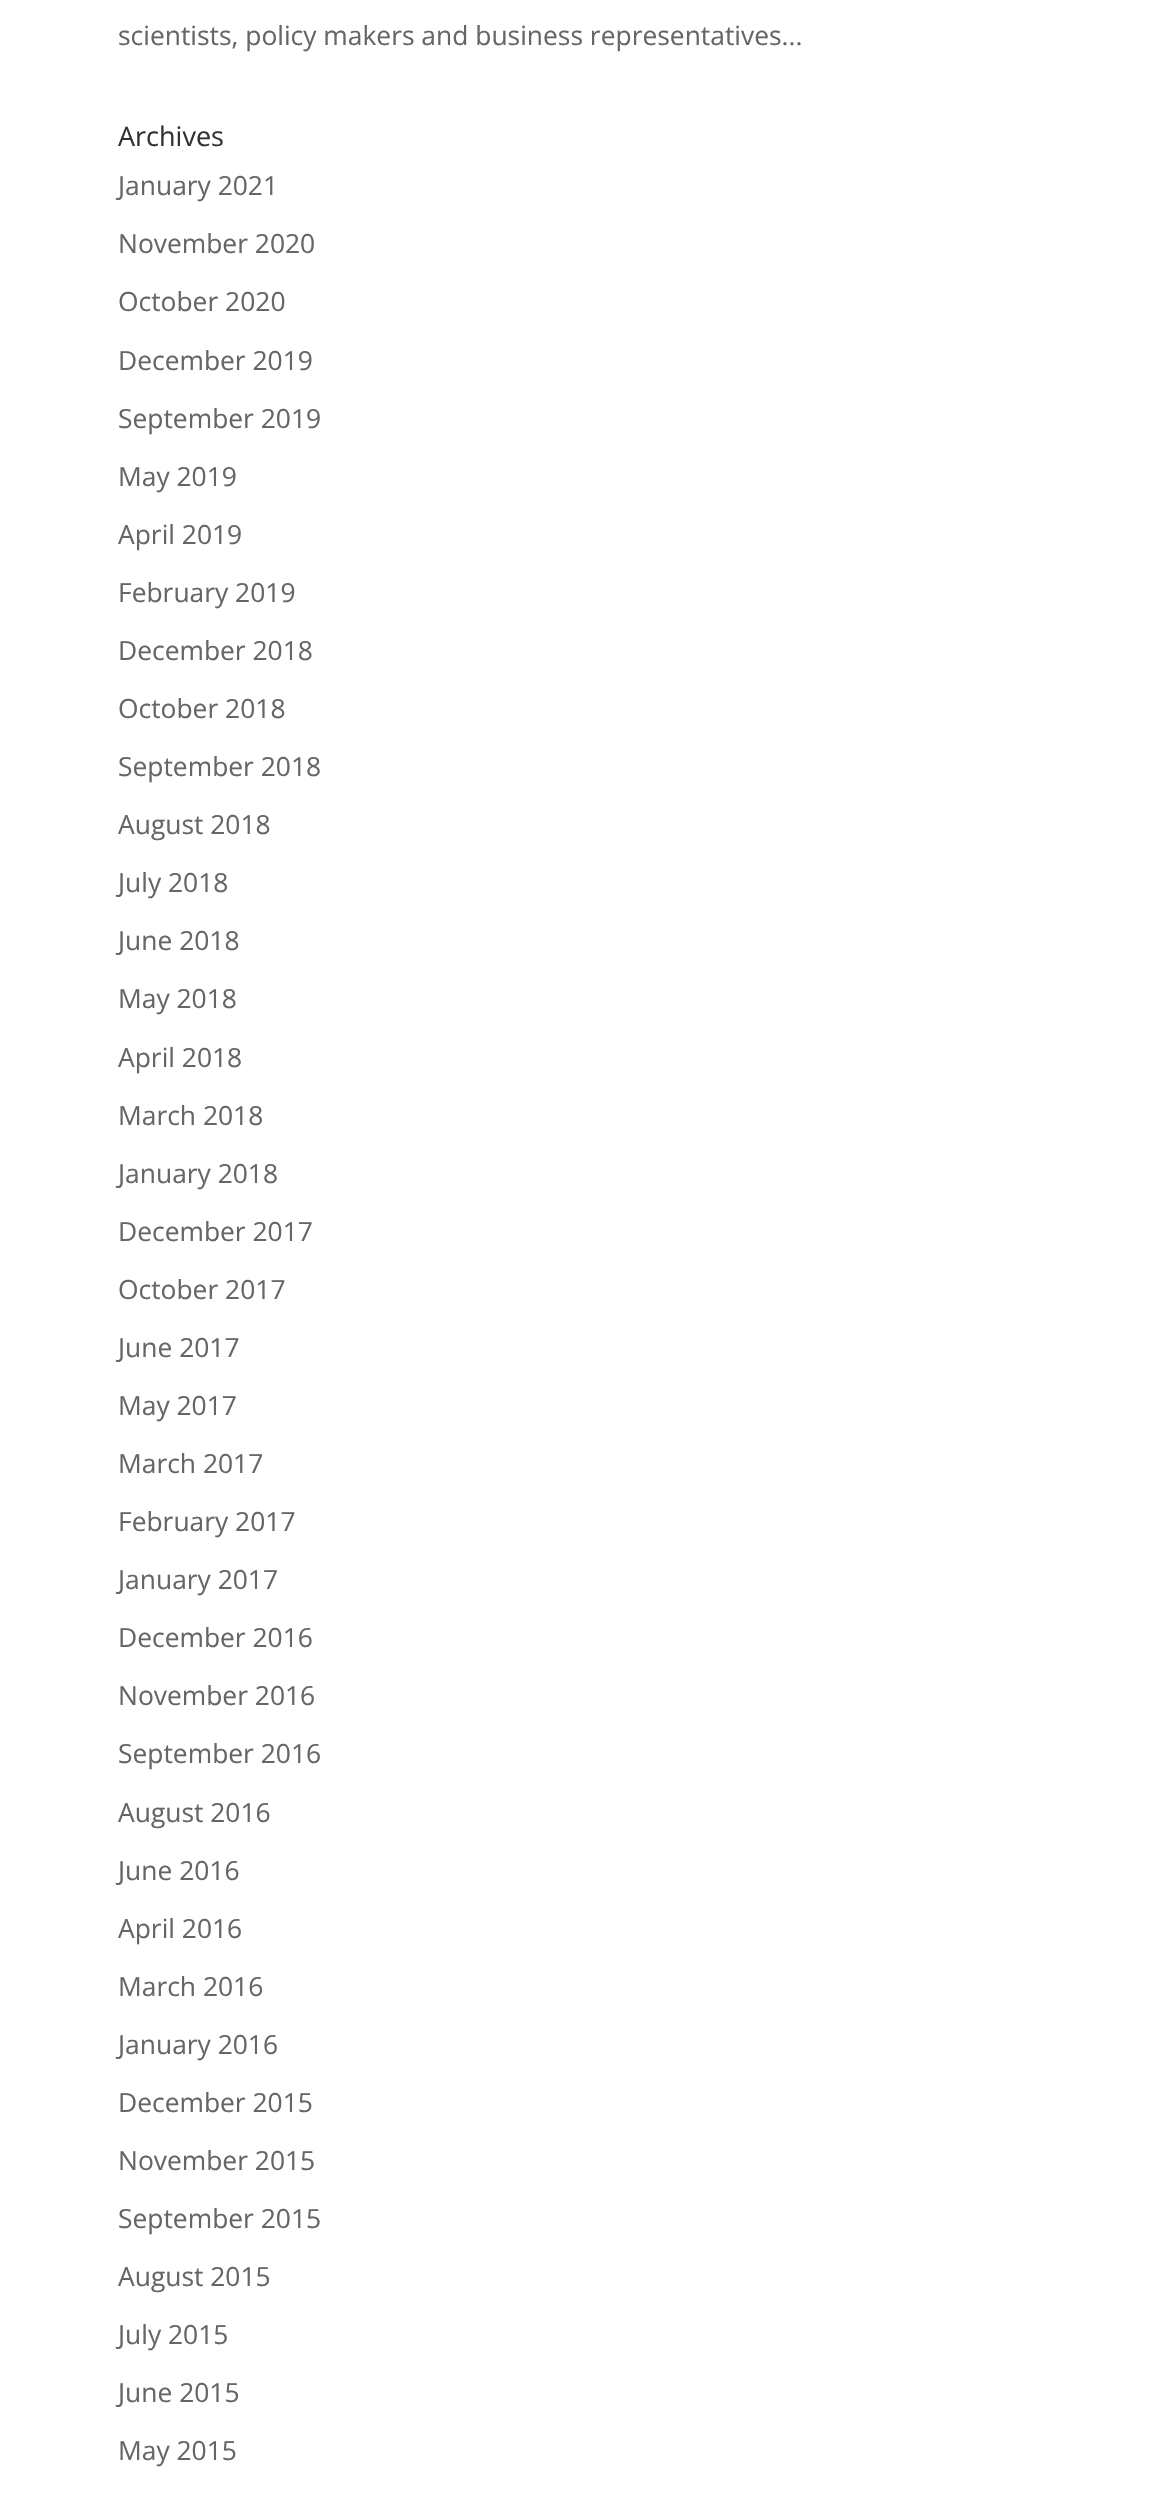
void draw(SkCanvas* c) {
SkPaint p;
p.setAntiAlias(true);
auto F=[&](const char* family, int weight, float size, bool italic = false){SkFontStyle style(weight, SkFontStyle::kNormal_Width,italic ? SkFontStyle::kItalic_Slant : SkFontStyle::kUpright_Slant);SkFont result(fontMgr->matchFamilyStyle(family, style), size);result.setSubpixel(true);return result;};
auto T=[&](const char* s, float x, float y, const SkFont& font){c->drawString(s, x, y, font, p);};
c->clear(0xffffffff);
auto f1 = F("Open Sans",400,26.4);
p.setColor(0xff666666);
T("scientists, policy makers and business representatives...",118,45,f1);
auto f2 = F("Open Sans",400,27);
p.setColor(0xff333333);
T("Archives",118,146,f2);
p.setColor(0xff666666);
T("January 2021",118,195,f1);
T("November 2020",118,253,f1);
T("October 2020",118,311,f1);
T("December 2019",118,370,f1);
T("September 2019",118,428,f1);
T("May 2019",118,486,f1);
T("April 2019",118,544,f1);
T("February 2019",118,602,f1);
T("December 2018",118,660,f1);
T("October 2018",118,718,f1);
T("September 2018",118,776,f1);
T("August 2018",118,834,f1);
T("July 2018",118,892,f1);
T("June 2018",118,950,f1);
T("May 2018",118,1008,f1);
T("April 2018",118,1067,f1);
T("March 2018",118,1125,f1);
T("January 2018",118,1183,f1);
T("December 2017",118,1241,f1);
T("October 2017",118,1299,f1);
T("June 2017",118,1357,f1);
T("May 2017",118,1415,f1);
T("March 2017",118,1473,f1);
T("February 2017",118,1531,f1);
T("January 2017",118,1589,f1);
T("December 2016",118,1647,f1);
T("November 2016",118,1705,f1);
T("September 2016",118,1763,f1);
T("August 2016",118,1822,f1);
T("June 2016",118,1880,f1);
T("April 2016",118,1938,f1);
T("March 2016",118,1996,f1);
T("January 2016",118,2054,f1);
T("December 2015",118,2112,f1);
T("November 2015",118,2170,f1);
T("September 2015",118,2228,f1);
T("August 2015",118,2286,f1);
T("July 2015",118,2344,f1);
T("June 2015",118,2402,f1);
T("May 2015",118,2460,f1);
}
